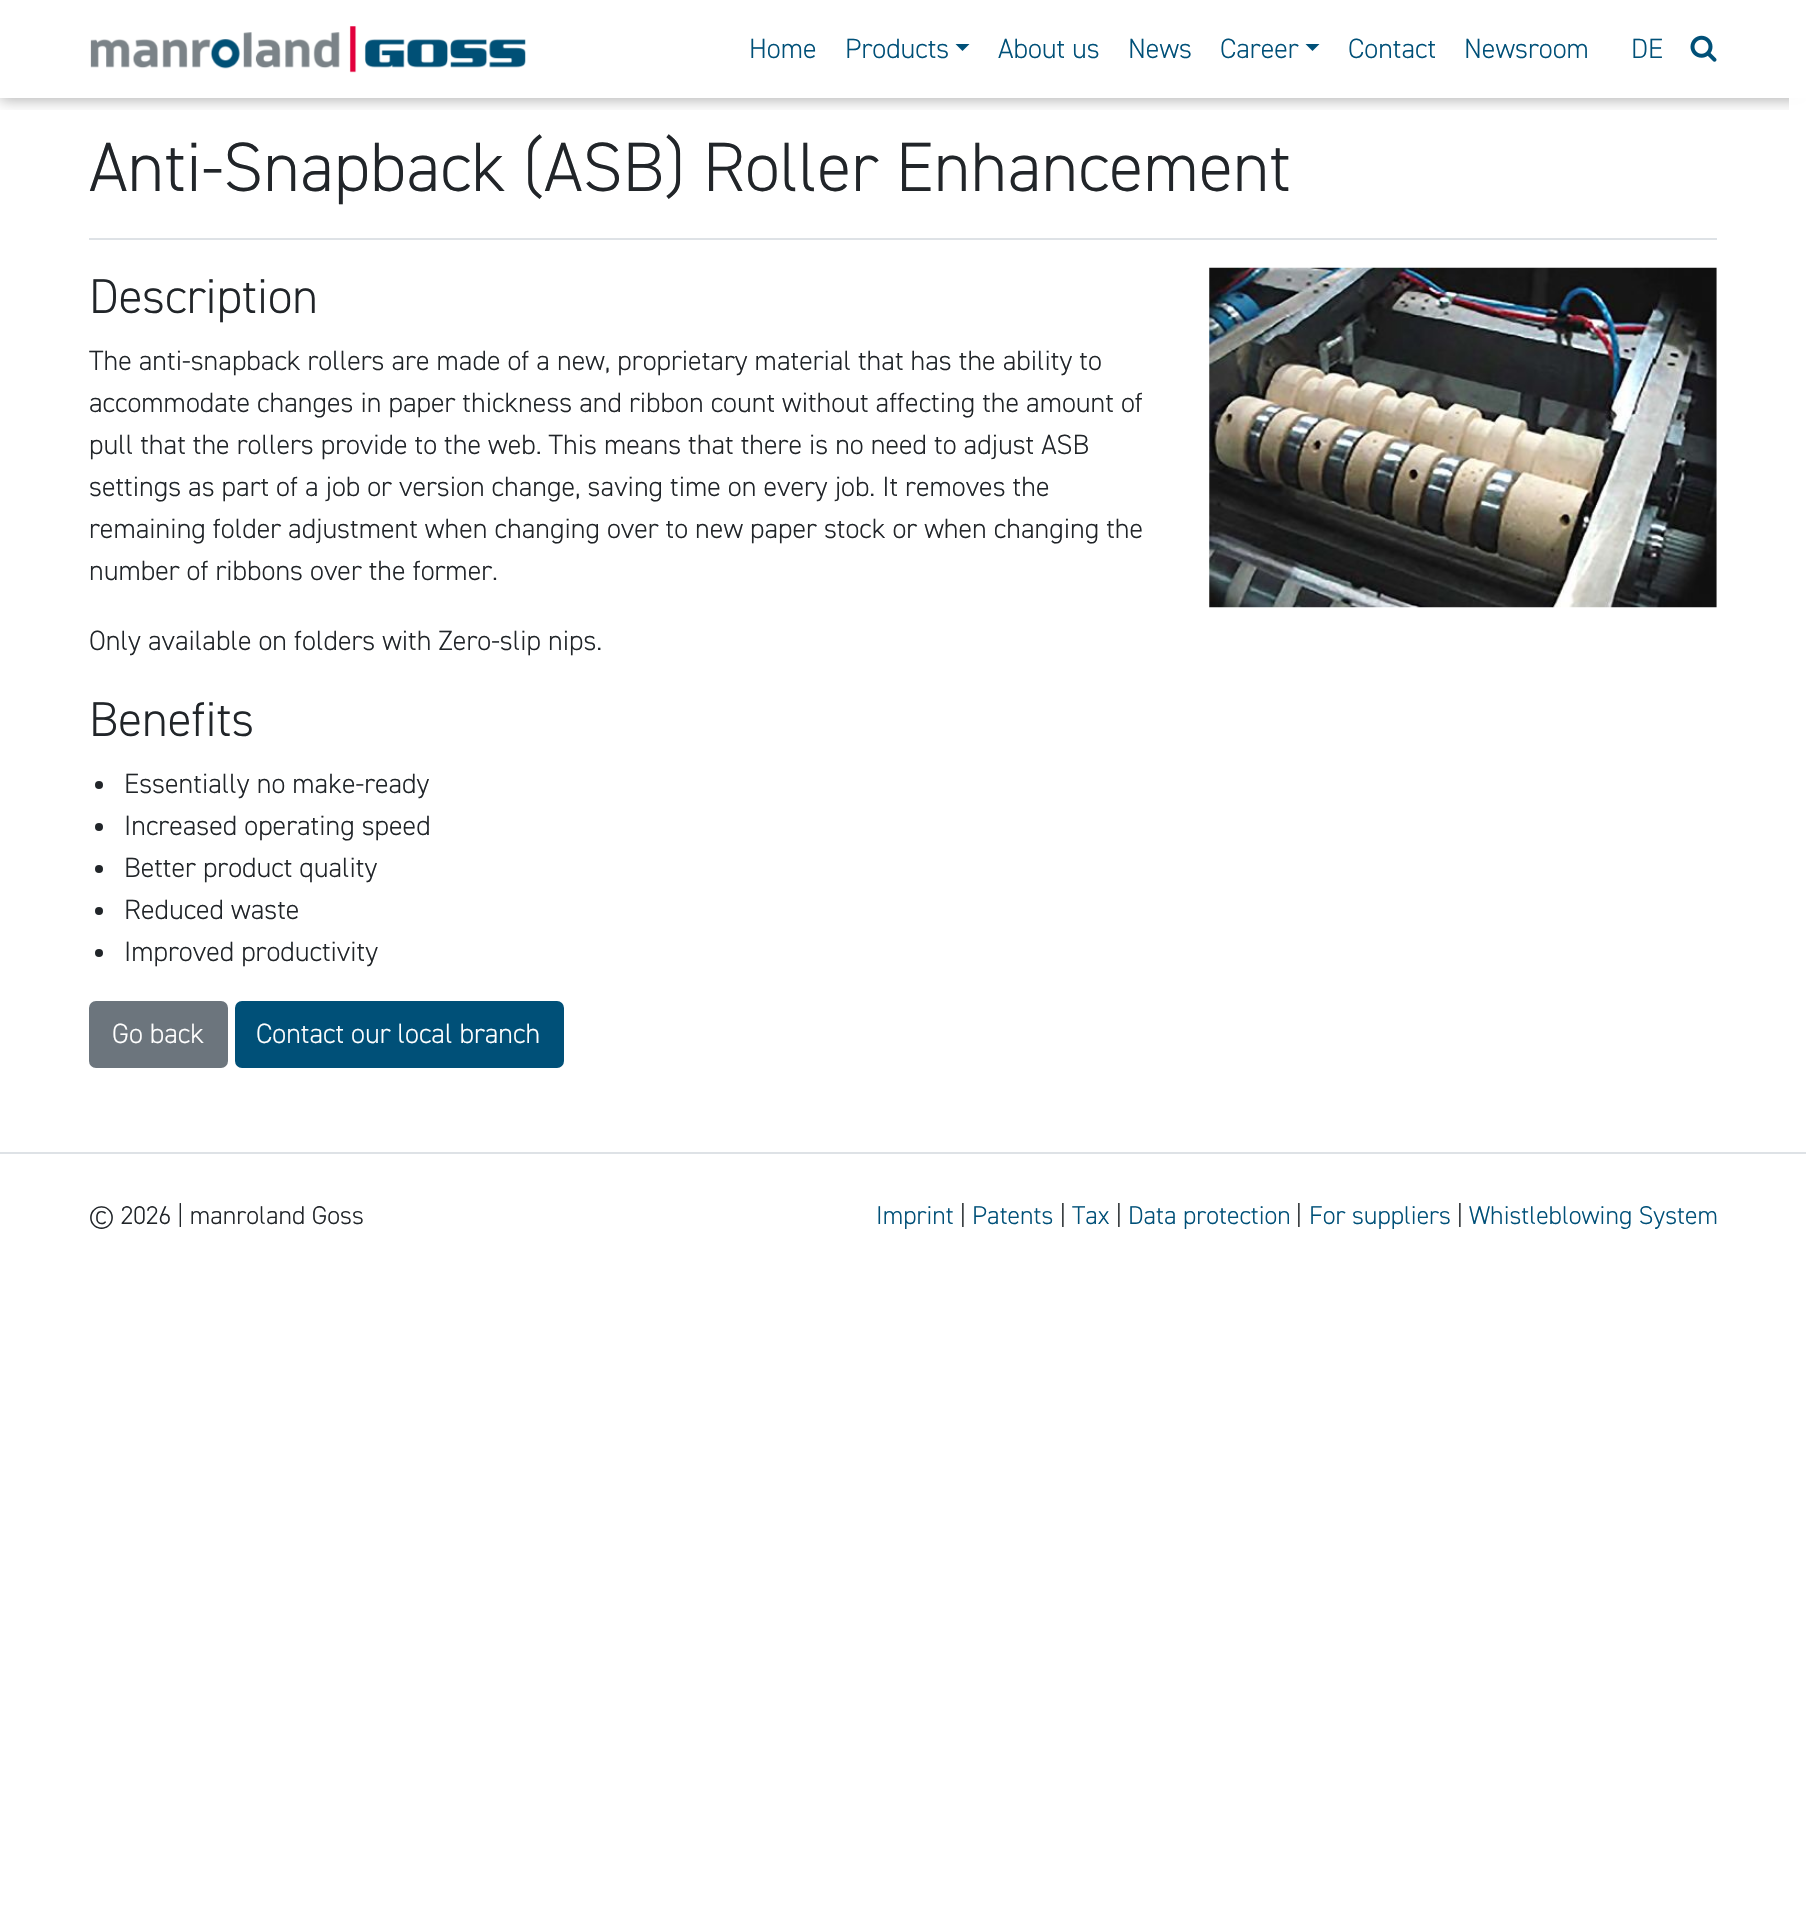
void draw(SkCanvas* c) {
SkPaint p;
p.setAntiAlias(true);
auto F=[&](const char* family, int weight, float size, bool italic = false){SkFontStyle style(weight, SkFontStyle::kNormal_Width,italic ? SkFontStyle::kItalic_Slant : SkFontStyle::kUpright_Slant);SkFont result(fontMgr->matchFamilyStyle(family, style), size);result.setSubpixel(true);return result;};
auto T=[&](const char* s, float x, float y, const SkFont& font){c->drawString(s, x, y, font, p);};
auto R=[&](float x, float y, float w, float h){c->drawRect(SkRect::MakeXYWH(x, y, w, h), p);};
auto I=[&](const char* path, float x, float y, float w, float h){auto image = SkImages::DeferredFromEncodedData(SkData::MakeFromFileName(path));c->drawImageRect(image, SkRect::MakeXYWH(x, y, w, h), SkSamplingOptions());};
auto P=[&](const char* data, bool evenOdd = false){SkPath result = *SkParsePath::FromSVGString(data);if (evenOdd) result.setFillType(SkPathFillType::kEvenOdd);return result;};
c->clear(0xffffffff);
c->save();
c->clipRect(SkRect::MakeXYWH(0,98,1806,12));
p.setColor(0x4d000000);
p.setMaskFilter(SkMaskFilter::MakeBlur(kNormal_SkBlurStyle, 7));
c->drawRect(SkRect::MakeXYWH(0,2,1806,98),p);
p.setMaskFilter(nullptr);
c->restore();
I("1.png",90,26,436,47);
auto f1 = F("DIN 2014",300,28);
p.setColor(0xff005078);
T("Home",749,58,f1);
T("Products",845,58,f1);
c->drawPath(P("M955.5 44h14l-7 7z"),p);
T("About us",998,58,f1);
T("News",1128,58,f1);
T("Career",1220,58,f1);
c->drawPath(P("M1305.5 44h14l-7 7z"),p);
T("Contact",1348,58,f1);
T("Newsroom",1464,58,f1);
T("DE",1631,58,f1);
I("2.png",1690,35,27,27);
p.setColor(0xf2ffffff);
R(1789,98,17,14);
auto f2 = F("DIN 2014",300,70);
p.setColor(0xff212529);
T("Anti-Snapback (ASB) Roller Enhancement",89,191,f2);
p.setColor(0xffdee2e6);
R(89,238,1628,2);
auto f3 = F("DIN 2014",300,49);
p.setColor(0xff212529);
T("Description",89,313,f3);
T("The anti-snapback rollers are made of a new, proprietary material that has the ability to",89,370,f1);
T("accommodate changes in paper thickness and ribbon count without affecting the amount of",89,412,f1);
T("pull that the rollers provide to the web. This means that there is no need to adjust ASB",89,454,f1);
T("settings as part of a job or version change, saving time on every job. It removes the",89,496,f1);
T("remaining folder adjustment when changing over to new paper stock or when changing the",89,538,f1);
T("number of ribbons over the former.",89,580,f1);
T("Only available on folders with Zero-slip nips.",89,650,f1);
T("Benefits",89,736,f3);
c->drawCircle(99,785,4,p);
T("Essentially no make-ready",124,793,f1);
c->drawCircle(99,827,4,p);
T("Increased operating speed",124,835,f1);
c->drawCircle(99,869,4,p);
T("Better product quality",124,877,f1);
c->drawCircle(99,911,4,p);
T("Reduced waste",124,919,f1);
c->drawCircle(99,953,4,p);
T("Improved productivity",124,961,f1);
I("3.png",1209,267,508,341);
p.setColor(0xff6c757d);
c->drawRoundRect(SkRect::MakeXYWH(90,1002,137,65),6,6,p);
p.setStroke(true);
p.setStrokeWidth(2);
c->drawRoundRect(SkRect::MakeXYWH(90,1002,137,65),6,6,p);
p.setStroke(false);
p.setColor(0xffffffff);
T("Go back",112,1043,f1);
p.setColor(0xff005078);
c->drawRoundRect(SkRect::MakeXYWH(236,1002,327,65),6,6,p);
p.setStroke(true);
c->drawRoundRect(SkRect::MakeXYWH(236,1002,327,65),6,6,p);
p.setStroke(false);
p.setColor(0xffffffff);
T("Contact our local branch",256,1043,f1);
p.setColor(0xffdee2e6);
R(0,1152,1806,2);
auto f4 = F("DIN 2014",300,25.75);
p.setColor(0xff212529);
T("© 2026 | manroland Goss",89,1224,f4);
p.setColor(0xff005078);
T("Imprint",876,1224,f4);
p.setColor(0xff212529);
T("|",960,1224,f4);
p.setColor(0xff005078);
T("Patents",972,1224,f4);
p.setColor(0xff212529);
T("|",1060,1224,f4);
p.setColor(0xff005078);
T("Tax",1072,1224,f4);
p.setColor(0xff212529);
T("|",1116,1224,f4);
p.setColor(0xff005078);
T("Data protection",1128,1224,f4);
p.setColor(0xff212529);
T("|",1296,1224,f4);
p.setColor(0xff005078);
T("For suppliers",1309,1224,f4);
p.setColor(0xff212529);
T("|",1457,1224,f4);
p.setColor(0xff005078);
T("Whistleblowing System",1469,1224,f4);
}
